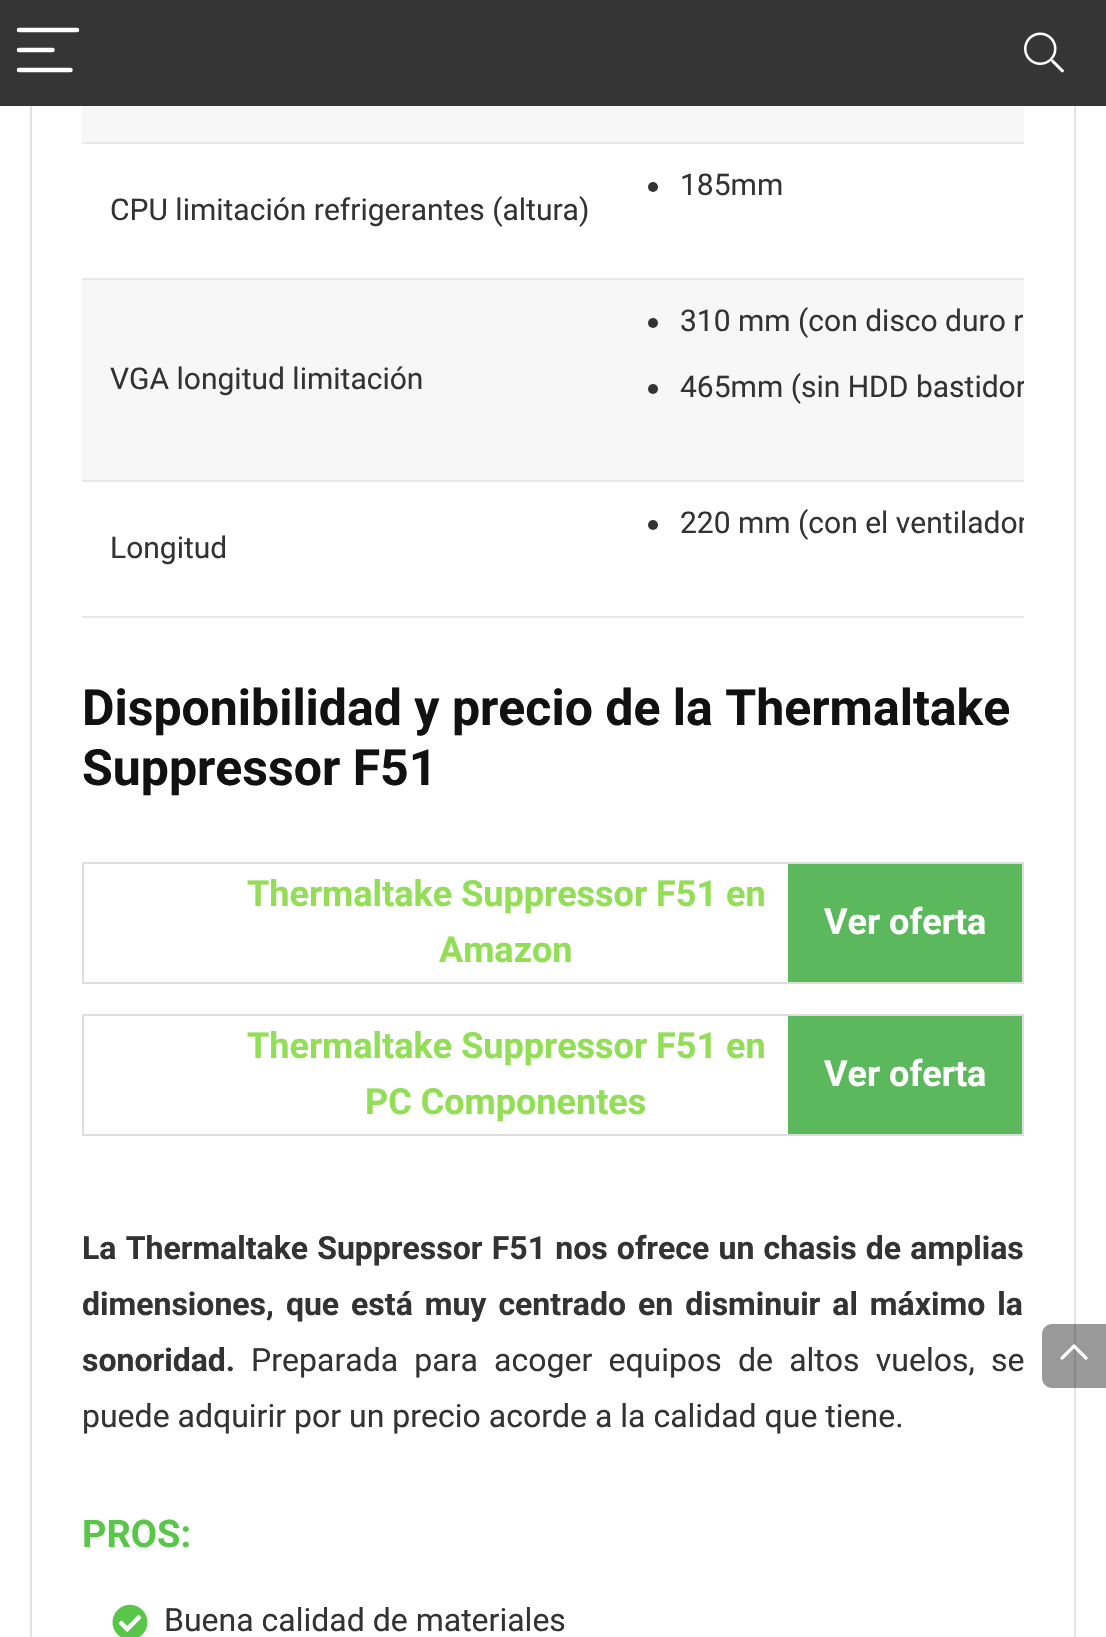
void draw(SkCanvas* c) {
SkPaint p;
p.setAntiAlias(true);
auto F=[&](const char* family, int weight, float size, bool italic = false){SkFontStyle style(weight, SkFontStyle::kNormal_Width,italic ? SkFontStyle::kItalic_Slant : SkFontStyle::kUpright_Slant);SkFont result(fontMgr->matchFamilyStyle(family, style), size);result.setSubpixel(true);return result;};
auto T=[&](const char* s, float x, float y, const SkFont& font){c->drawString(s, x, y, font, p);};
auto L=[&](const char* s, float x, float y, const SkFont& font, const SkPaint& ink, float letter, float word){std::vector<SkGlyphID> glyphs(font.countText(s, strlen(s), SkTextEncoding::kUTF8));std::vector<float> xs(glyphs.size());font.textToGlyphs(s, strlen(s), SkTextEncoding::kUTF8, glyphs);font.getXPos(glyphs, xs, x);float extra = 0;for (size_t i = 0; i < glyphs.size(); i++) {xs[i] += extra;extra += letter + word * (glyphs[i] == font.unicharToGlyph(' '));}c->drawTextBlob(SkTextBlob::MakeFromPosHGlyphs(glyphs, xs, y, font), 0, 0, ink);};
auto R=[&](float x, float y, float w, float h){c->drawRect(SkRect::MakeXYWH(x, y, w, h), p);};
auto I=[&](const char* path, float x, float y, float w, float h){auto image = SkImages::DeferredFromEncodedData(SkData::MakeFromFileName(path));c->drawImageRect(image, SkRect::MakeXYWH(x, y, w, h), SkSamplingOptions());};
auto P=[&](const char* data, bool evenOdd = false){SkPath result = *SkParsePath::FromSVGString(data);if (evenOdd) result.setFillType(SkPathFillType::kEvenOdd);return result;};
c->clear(0xffffffff);
p.setStroke(true);
p.setStrokeWidth(2);
p.setColor(0xffe3e3e3);
c->drawRect(SkRect::MakeXYWH(31,-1,1044,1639),p);
p.setStroke(false);
p.setColor(0xff353535);
R(0,0,1106,106);
p.setStroke(true);
p.setStrokeWidth(4.5);
p.setStrokeCap(SkPaint::kRound_Cap);
p.setColor(0xffffffff);
c->drawPath(P("M19 30h58"),p);
c->drawPath(P("M19 50h33.5m-33.5 20h51.5"),p);
I("1.png",1024,32,40,41);
p.setStroke(false);
p.setColor(0xfff7f7f7);
R(82,106,942,36);
p.setColor(0xffe8e8e8);
R(82,142,942,2);
p.setColor(0xff333333);
c->drawCircle(653,187,5,p);
auto f1 = F("Roboto",400,30);
T("185mm",680,195,f1);
p.setColor(0xffe8e8e8);
R(82,278,942,2);
p.setColor(0xff333333);
T("CPU limitación refrigerantes (altura)",110,220,f1);
p.setColor(0xfff7f7f7);
R(82,280,942,200);
p.setColor(0xffe8e8e8);
R(82,480,942,2);
p.setColor(0xff333333);
T("VGA longitud limitación",110,389,f1);
c->drawCircle(653,323,5,p);
T("310 mm (con disco duro r",680,331,f1);
c->drawCircle(653,389,5,p);
c->save();
c->clipRect(SkRect::MakeXYWH(82,0,942,660));
T("465mm (sin HDD bastidor",680,397,f1);
c->restore();
c->drawCircle(653,525,5,p);
c->save();
c->clipRect(SkRect::MakeXYWH(82,0,942,660));
T("220 mm (con el ventilador",680,533,f1);
c->restore();
p.setColor(0xffe8e8e8);
R(82,616,942,2);
p.setColor(0xff333333);
T("Longitud",110,558,f1);
auto f2 = F("Roboto",700,50);
p.setColor(0xff111111);
T("Disponibilidad y precio de la Thermaltake",82,725,f2);
T("Suppressor F51",82,785,f2);
p.setColor(0xffdddddd);
R(82,862,942,2);
R(1022,862,2,122);
R(82,982,942,2);
R(82,862,2,122);
auto f3 = F("Roboto",700,36);
p.setColor(0xff92de57);
T("Thermaltake Suppressor F51 en",247,906,f3);
T("Amazon",439,962,f3);
p.setColor(0xff5cb85c);
R(788,864,234,118);
p.setColor(0xffffffff);
T("Ver oferta",824,934,f3);
p.setColor(0xffdddddd);
R(82,1014,942,2);
R(1022,1014,2,122);
R(82,1134,942,2);
R(82,1014,2,122);
p.setColor(0xff92de57);
T("Thermaltake Suppressor F51 en",247,1058,f3);
T("PC Componentes",365,1114,f3);
p.setColor(0xff5cb85c);
R(788,1016,234,118);
p.setColor(0xffffffff);
T("Ver oferta",824,1086,f3);
auto f4 = F("Roboto",700,32);
p.setColor(0xff333333);
L("La Thermaltake Suppressor F51 nos ofrece un chasis de amplias",82,1259,f4,p,0,1.25);
L("dimensiones, que está muy centrado en disminuir al máximo la",82,1315,f4,p,0,4);
T("sonoridad.",82,1371,f4);
auto f5 = F("Roboto",400,32);
L("Preparada para acoger equipos de altos vuelos, se",251,1371,f5,p,0,8.25);
T("puede adquirir por un precio acorde a la calidad que tiene.",82,1427,f5);
auto f6 = F("Roboto",700,38);
p.setColor(0xff58c649);
T("PROS:",82,1547,f6);
I("2.png",112,1604,36,33);
p.setColor(0xff333333);
T("Buena calidad de materiales",164,1631,f5);
p.setColor(0x66000000);
c->drawPath(P("M1052 1324h54v64h-54c-5.5 0-10-4.5-10-10v-44c0-5.5 4.5-10 10-10z"),p);
I("3.png",1060,1344,28,16);
}
